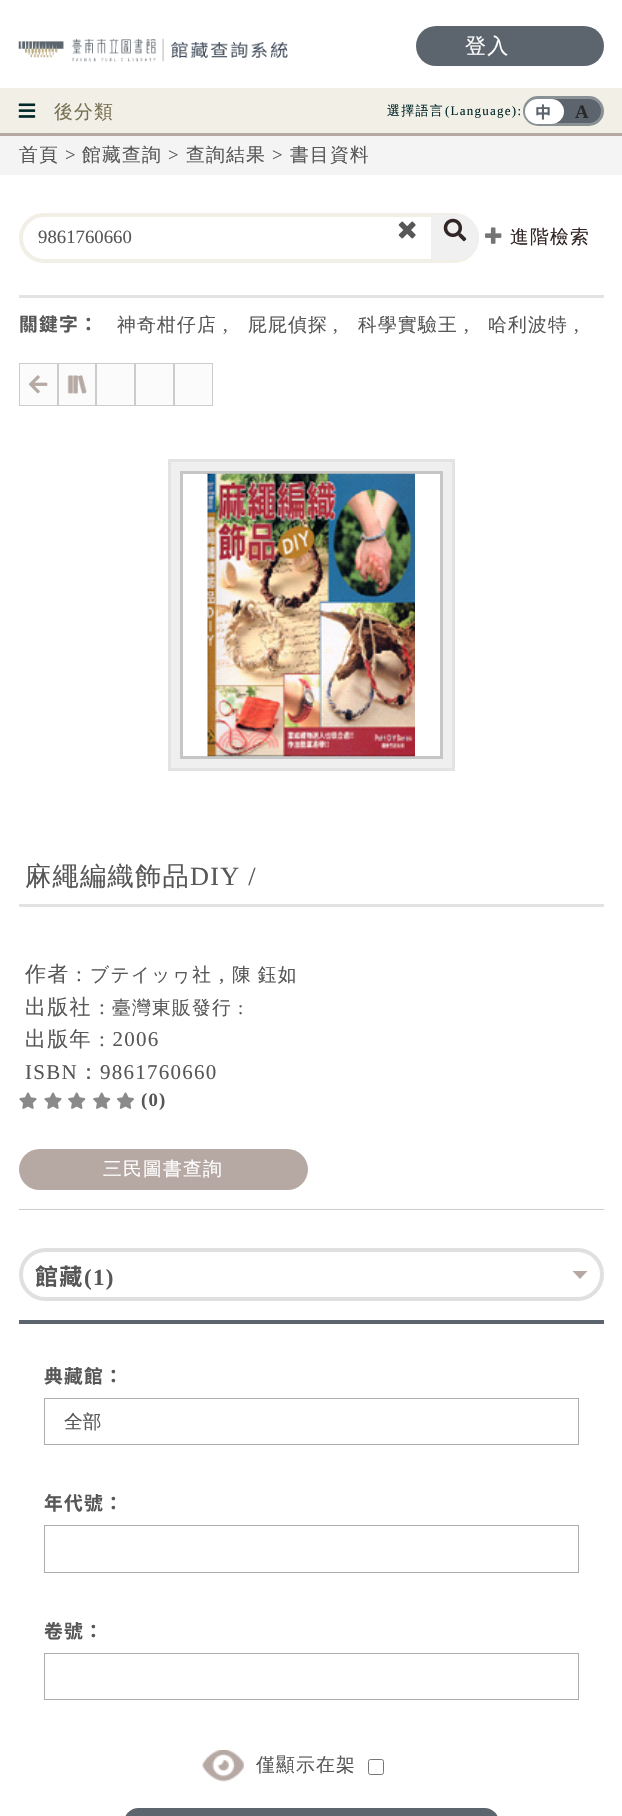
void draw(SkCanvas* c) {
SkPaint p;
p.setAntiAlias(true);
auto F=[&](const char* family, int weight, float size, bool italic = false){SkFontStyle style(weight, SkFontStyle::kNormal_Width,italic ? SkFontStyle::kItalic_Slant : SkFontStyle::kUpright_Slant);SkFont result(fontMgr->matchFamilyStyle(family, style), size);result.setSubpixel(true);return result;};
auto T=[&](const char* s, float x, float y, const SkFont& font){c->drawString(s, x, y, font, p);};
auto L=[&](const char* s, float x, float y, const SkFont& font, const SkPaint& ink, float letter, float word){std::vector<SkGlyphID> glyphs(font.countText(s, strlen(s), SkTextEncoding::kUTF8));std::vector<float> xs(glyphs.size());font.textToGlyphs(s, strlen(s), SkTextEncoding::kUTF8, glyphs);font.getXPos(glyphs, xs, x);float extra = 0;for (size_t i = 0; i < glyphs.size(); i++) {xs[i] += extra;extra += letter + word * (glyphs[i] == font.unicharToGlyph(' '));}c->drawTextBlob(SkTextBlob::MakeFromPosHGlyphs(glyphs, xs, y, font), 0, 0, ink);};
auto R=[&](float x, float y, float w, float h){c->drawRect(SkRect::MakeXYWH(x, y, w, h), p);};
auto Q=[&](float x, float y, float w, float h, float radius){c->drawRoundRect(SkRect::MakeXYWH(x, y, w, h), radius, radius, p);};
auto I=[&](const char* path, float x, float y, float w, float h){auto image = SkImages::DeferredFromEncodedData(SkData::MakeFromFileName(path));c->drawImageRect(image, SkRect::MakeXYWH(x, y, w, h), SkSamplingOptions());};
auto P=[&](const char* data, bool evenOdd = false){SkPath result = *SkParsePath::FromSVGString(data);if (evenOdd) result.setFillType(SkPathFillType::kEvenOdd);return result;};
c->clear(0xffffffff);
I("1.png",18,38,270,24);
p.setColor(0xff5c656d);
Q(416,26,188,40,20);
auto f1 = F("WenQuanYi Zen Hei",500,21);
p.setColor(0xffffffff);
L("登入",465,53,f1,p,1.25,0);
p.setColor(0xfff2efe7);
R(0,88,622,45);
p.setColor(0xffb6a9a4);
R(0,133,622,3);
I("2.png",18,103,18,15);
p.setColor(0xffefeeea);
R(51,93,3,37);
auto f2 = F("WenQuanYi Zen Hei",500,18.75);
p.setColor(0xff767153);
L("後分類",54,118,f2,p,1.25,0);
auto f3 = F("WenQuanYi Zen Hei",500,13);
p.setColor(0xff002727);
L("選擇語言",387,115,f3,p,1.25,0);
auto f4 = F("Liberation Serif",400,13);
L("(Language):",445,115,f4,p,1.25,0);
p.setColor(0xff5c656d);
c->drawRoundRect(SkRect::MakeXYWH(524.5,97.5,78,27),13.5,13.5,p);
p.setStroke(true);
p.setStrokeWidth(3);
p.setColor(0xff8a9195);
c->drawRoundRect(SkRect::MakeXYWH(524.5,97.5,78,27),13.5,13.5,p);
p.setStroke(false);
p.setColor(0xffffffff);
Q(525,99,39,25,12.5);
auto f5 = F("Noto Sans TC",700,16);
p.setColor(0xff5c656d);
L("中",535,118,f5,p,1.25,0);
auto f6 = F("Liberation Serif",700,18.75);
p.setColor(0xff292929);
L("A",575,118,f6,p,1.25,0);
p.setColor(0xfff4f4f4);
R(0,136,622,39);
p.setColor(0xff575757);
L("首頁",19,161,f2,p,1.25,0);
auto f7 = F("Liberation Serif",400,18.75);
L(">",65,161,f7,p,1.25,0);
L("館藏查詢",82,161,f2,p,1.25,0);
L(">",168,161,f7,p,1.25,0);
L("查詢結果",186,161,f2,p,1.25,0);
L(">",272,161,f7,p,1.25,0);
L("書目資料",290,161,f2,p,1.25,0);
p.setStroke(true);
p.setStrokeWidth(4);
p.setColor(0xfff2efe7);
c->drawRoundRect(SkRect::MakeXYWH(21,215,456,46),23,23,p);
p.setStroke(false);
p.setColor(0xff575757);
T("9861760660",38,243,f7);
I("3.png",398,221,18,18);
p.setColor(0xfff0f0f0);
c->drawPath(P("M431 215h25.5c12.5 0 22.5 10 22.5 22.5c0 12.5-10 22.5-22.5 22.5h-25.5z"),p);
I("4.png",443,218,24,24);
I("5.png",485,227,17,17);
p.setColor(0xff322525);
L("進階檢索",510,243,f2,p,1.25,0);
p.setColor(0xffe3e3e3);
R(19,295,585,3);
auto f8 = F("Noto Sans TC",700,18.75);
p.setColor(0xff575757);
L("關鍵字：",19,331,f8,p,1.25,0);
L("神奇柑仔店",117,331,f2,p,1.25,0);
L(",",223,331,f7,p,1.25,0);
L("屁屁偵探",248,331,f2,p,1.25,0);
L(",",333,331,f7,p,1.25,0);
L("科學實驗王",358,331,f2,p,1.25,0);
L(",",464,331,f7,p,1.25,0);
L("哈利波特",488,331,f2,p,1.25,0);
L(",",574,331,f7,p,1.25,0);
p.setColor(0xfffbfbfb);
c->drawRect(SkRect::MakeXYWH(19.5,363.5,38,42),p);
p.setStroke(true);
p.setStrokeWidth(1);
p.setColor(0xffcccccc);
c->drawRect(SkRect::MakeXYWH(19.5,363.5,38,42),p);
I("6.png",28,375,20,19);
p.setStroke(false);
p.setColor(0xfffbfbfb);
c->drawRect(SkRect::MakeXYWH(58.5,363.5,37,42),p);
p.setStroke(true);
p.setColor(0xffcccccc);
c->drawRect(SkRect::MakeXYWH(58.5,363.5,37,42),p);
I("7.png",67,375,20,19);
p.setStroke(false);
p.setColor(0xfffbfbfb);
c->drawRect(SkRect::MakeXYWH(96.5,363.5,38,42),p);
p.setStroke(true);
p.setColor(0xffcccccc);
c->drawRect(SkRect::MakeXYWH(96.5,363.5,38,42),p);
p.setStroke(false);
p.setColor(0xfffbfbfb);
c->drawRect(SkRect::MakeXYWH(135.5,363.5,38,42),p);
p.setStroke(true);
p.setColor(0xffcccccc);
c->drawRect(SkRect::MakeXYWH(135.5,363.5,38,42),p);
p.setStroke(false);
p.setColor(0xfffbfbfb);
c->drawRect(SkRect::MakeXYWH(174.5,363.5,38,42),p);
p.setStroke(true);
p.setColor(0xffcccccc);
c->drawRect(SkRect::MakeXYWH(174.5,363.5,38,42),p);
p.setStroke(false);
p.setColor(0xffefefef);
c->drawRect(SkRect::MakeXYWH(169.5,460.5,284,309),p);
p.setStroke(true);
p.setStrokeWidth(3);
p.setColor(0xffe3e3e3);
c->drawRect(SkRect::MakeXYWH(169.5,460.5,284,309),p);
p.setStroke(false);
p.setColor(0xffffffff);
c->drawRect(SkRect::MakeXYWH(181.5,472.5,260,285),p);
p.setStroke(true);
p.setColor(0xffc6c6c6);
c->drawRect(SkRect::MakeXYWH(181.5,472.5,260,285),p);
I("8.png",207,473,208,284);
p.setStroke(false);
p.setColor(0xffe3e3e3);
R(19,904,585,3);
auto f9 = F("WenQuanYi Zen Hei",500,26.25);
p.setColor(0xff575757);
L("麻繩編織飾品",25,885,f9,p,1.25,0);
auto f10 = F("Liberation Serif",400,26.25);
L("DIY /",190,885,f10,p,1.25,0);
L("作者",25,981,f1,p,1.25,0);
auto f11 = F("Liberation Serif",400,21);
L(":",76,981,f11,p,1.25,0);
L("ブテイッヮ社",90,981,f2,p,1.25,0);
L(",",219,981,f11,p,1.25,0);
L("陳 鈺如",232,981,f2,p,1.25,-1);
L("出版社",25,1014,f1,p,1.25,0);
L(":",99,1014,f11,p,1.25,0);
L("臺灣東販發行",112,1014,f2,p,1.25,0);
L(":",238,1014,f7,p,1.25,0);
L("出版年",25,1046,f1,p,1.25,0);
L(": 2006",99,1046,f11,p,1.25,0);
L("ISBN",25,1079,f11,p,1.25,0);
L("：",78,1079,f1,p,1.25,0);
L("9861760660",100,1079,f11,p,1.25,0);
I("9.png",19,1092,18,17);
I("9.png",44,1092,18,17);
I("10.png",68,1092,18,17);
I("10.png",93,1092,18,17);
I("11.png",117,1092,17,17);
L("(0)",141,1106,f6,p,1.25,0);
p.setColor(0xffcccccc);
R(19,1209,585,1);
p.setColor(0xffb6a9a4);
Q(19,1149,289,41,20.5);
p.setColor(0xffffffff);
L("三民圖書查詢",103,1175,f2,p,1.25,0);
p.setStroke(true);
p.setStrokeWidth(4);
p.setColor(0xffe0e0e0);
c->drawRoundRect(SkRect::MakeXYWH(21,1250,581,49),24.5,24.5,p);
auto f12 = F("Noto Sans TC",700,23);
p.setStroke(false);
p.setColor(0xff575757);
L("館藏",35,1285,f12,p,1.25,0);
auto f13 = F("Liberation Serif",700,23);
L("(1)",84,1285,f13,p,1.25,0);
p.setColor(0xffb6a9a4);
c->drawPath(P("M572.5 1271h15l-7.5 8z"),p);
p.setColor(0xff5c656d);
R(19,1320,585,4);
p.setColor(0xff575757);
L("典藏館：",44,1383,f8,p,1.25,0);
p.setStroke(true);
p.setStrokeWidth(1);
p.setColor(0xffadadad);
c->drawRect(SkRect::MakeXYWH(44.5,1398.5,534,46),p);
p.setStroke(false);
p.setColor(0xff575757);
T("全部",64,1428,f2);
L("年代號：",44,1510,f8,p,1.25,0);
p.setStroke(true);
p.setColor(0xffadadad);
c->drawRect(SkRect::MakeXYWH(44.5,1525.5,534,47),p);
p.setStroke(false);
p.setColor(0xff575757);
L("卷號：",44,1638,f8,p,1.25,0);
p.setStroke(true);
p.setColor(0xffadadad);
c->drawRect(SkRect::MakeXYWH(44.5,1653.5,534,46),p);
I("12.png",202,1750,42,32);
p.setStroke(false);
p.setColor(0xff575757);
L("僅顯示在架",256,1771,f2,p,1.25,0);
p.setStroke(true);
p.setColor(0xff767676);
c->drawRoundRect(SkRect::MakeXYWH(368.5,1759.5,15,15),2,2,p);
p.setStroke(false);
p.setColor(0xff5c656d);
Q(124,1808,375,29,20.5);
}
